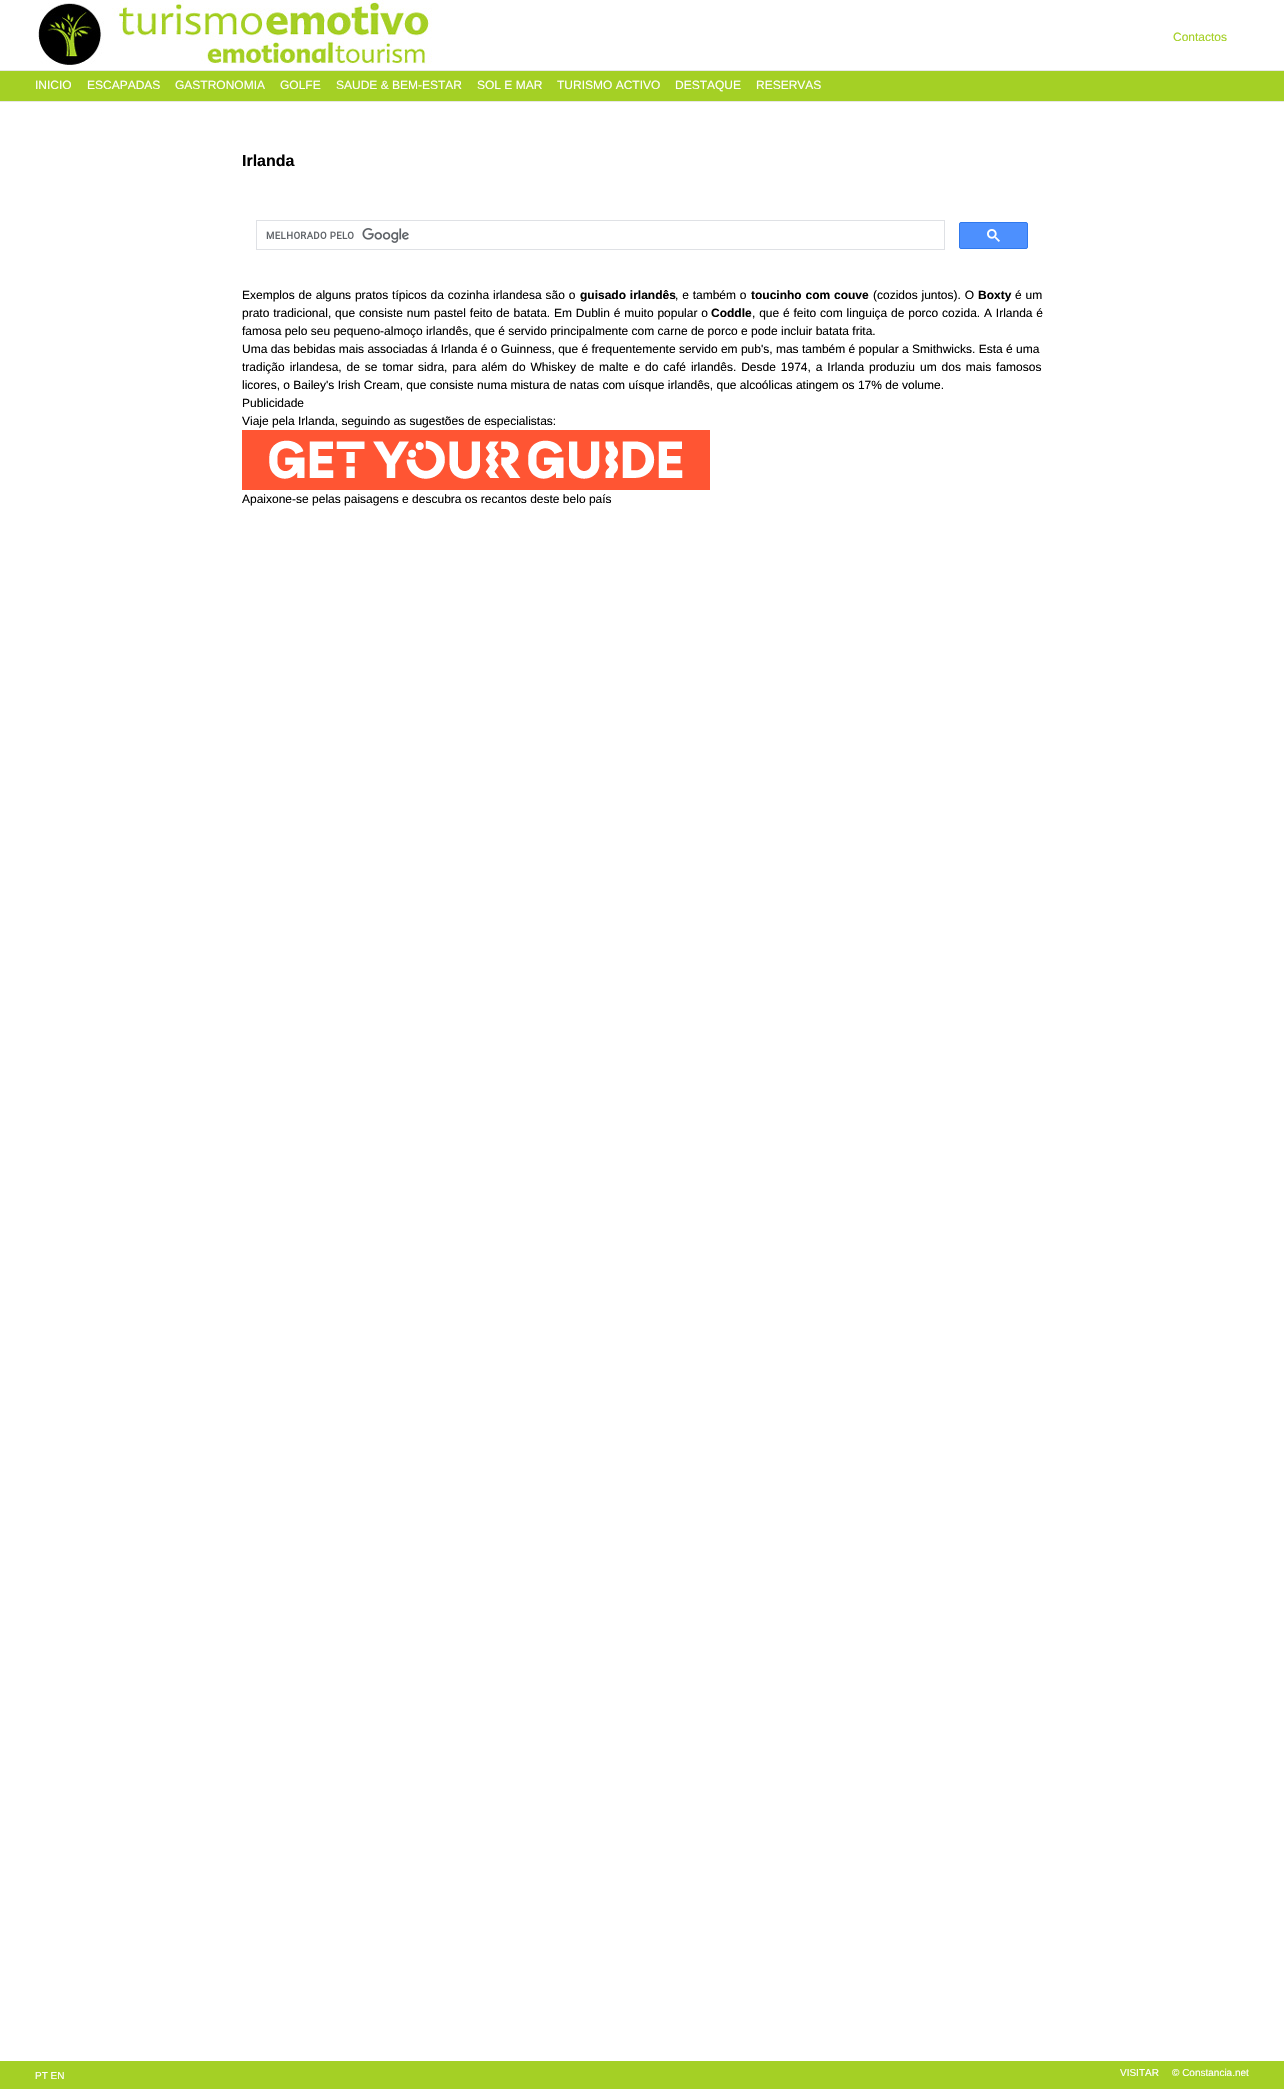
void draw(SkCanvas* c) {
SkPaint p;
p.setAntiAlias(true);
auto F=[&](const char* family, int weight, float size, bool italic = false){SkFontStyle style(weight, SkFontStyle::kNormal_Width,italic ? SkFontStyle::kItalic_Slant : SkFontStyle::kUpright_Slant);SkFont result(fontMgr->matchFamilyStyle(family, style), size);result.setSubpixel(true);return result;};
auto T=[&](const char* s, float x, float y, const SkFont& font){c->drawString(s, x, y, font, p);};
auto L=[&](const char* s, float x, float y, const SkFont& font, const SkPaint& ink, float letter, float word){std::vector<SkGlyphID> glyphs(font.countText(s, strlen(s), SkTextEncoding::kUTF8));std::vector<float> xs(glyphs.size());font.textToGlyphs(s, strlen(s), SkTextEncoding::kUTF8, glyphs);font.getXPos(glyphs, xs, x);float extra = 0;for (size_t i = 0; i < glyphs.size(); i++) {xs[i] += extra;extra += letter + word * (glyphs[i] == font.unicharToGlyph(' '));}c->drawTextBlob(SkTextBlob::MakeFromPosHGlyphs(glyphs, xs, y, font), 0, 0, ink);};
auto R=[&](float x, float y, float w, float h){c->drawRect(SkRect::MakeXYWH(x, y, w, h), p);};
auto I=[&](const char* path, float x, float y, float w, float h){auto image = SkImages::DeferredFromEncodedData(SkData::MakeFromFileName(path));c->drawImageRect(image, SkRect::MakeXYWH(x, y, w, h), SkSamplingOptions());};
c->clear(0xffffffff);
I("1.png",38,0,394,65);
auto f1 = F("Liberation Sans",400,12);
p.setColor(0xffa4d025);
T("Contactos",1173,41,f1);
R(0,71,1284,30);
p.setColor(0xffe7e7e7);
R(0,70,1284,1);
R(0,101,1284,1);
p.setColor(0xffffffff);
T("INICIO",35,89,f1);
T("ESCAPADAS",87,89,f1);
T("GASTRONOMIA",175,89,f1);
T("GOLFE",280,89,f1);
T("SAUDE & BEM-ESTAR",336,89,f1);
T("SOL E MAR",477,89,f1);
T("TURISMO ACTIVO",557,89,f1);
T("DESTAQUE",675,89,f1);
T("RESERVAS",756,89,f1);
auto f2 = F("Liberation Sans",700,16);
p.setColor(0xff000000);
T("Irlanda",242,166,f2);
p.setStroke(true);
p.setStrokeWidth(1);
p.setColor(0xffdfe1e5);
c->drawRect(SkRect::MakeXYWH(256.5,220.5,688,29),p);
I("2.png",266,228,143,15);
p.setStroke(false);
p.setColor(0xff4d90fe);
c->drawRoundRect(SkRect::MakeXYWH(959.5,222.5,68,26),1.5,1.5,p);
p.setStroke(true);
p.setColor(0xff3079ed);
c->drawRoundRect(SkRect::MakeXYWH(959.5,222.5,68,26),1.5,1.5,p);
I("3.png",987,229,13,13);
p.setStroke(false);
p.setColor(0xff000000);
L("Exemplos de alguns pratos típicos da cozinha irlandesa são o",242,299,f1,p,0,.5);
auto f3 = F("Liberation Sans",700,12);
L("guisado irlandês",580,299,f3,p,0,.5);
L(", e também o",675,299,f1,p,0,.5);
L("toucinho com couve",751,299,f3,p,0,.5);
L("(cozidos juntos). O",873,299,f1,p,0,.5);
T("Boxty",978,299,f3);
L("é um",1015,299,f1,p,0,.5);
L("prato tradicional, que consiste num pastel feito de batata. Em Dublin é muito popular o",242,317,f1,p,0,.5);
T("Coddle",711,317,f3);
L(", que é feito com linguiça de porco cozida. A Irlanda é",752,317,f1,p,0,.5);
T("famosa pelo seu pequeno-almoço irlandês, que é servido principalmente com carne de porco e pode incluir batata frita.",242,335,f1);
T("Uma das bebidas mais associadas á Irlanda é o Guinness, que é frequentemente servido em pub's, mas também é popular a Smithwicks. Esta é uma",242,353,f1);
L("tradição irlandesa, de se tomar sidra, para além do Whiskey de malte e do café irlandês. Desde 1974, a Irlanda produziu um dos mais famosos",242,371,f1,p,0,1.6);
T("licores, o Bailey's Irish Cream, que consiste numa mistura de natas com uísque irlandês, que alcoólicas atingem os 17% de volume.",242,389,f1);
T("Publicidade",242,407,f1);
T("Viaje pela Irlanda, seguindo as sugestões de especialistas:",242,425,f1);
I("4.png",242,430,468,60);
T("Apaixone-se pelas paisagens e descubra os recantos deste belo país",242,503,f1);
p.setColor(0xffa4d025);
R(0,2061,1284,28);
auto f4 = F("Liberation Sans",400,10);
p.setColor(0xffffffff);
T("PT EN",35,2079,f4);
T("VISITAR",1120,2076,f4);
T("© Constancia.net",1172,2076,f4);
}
